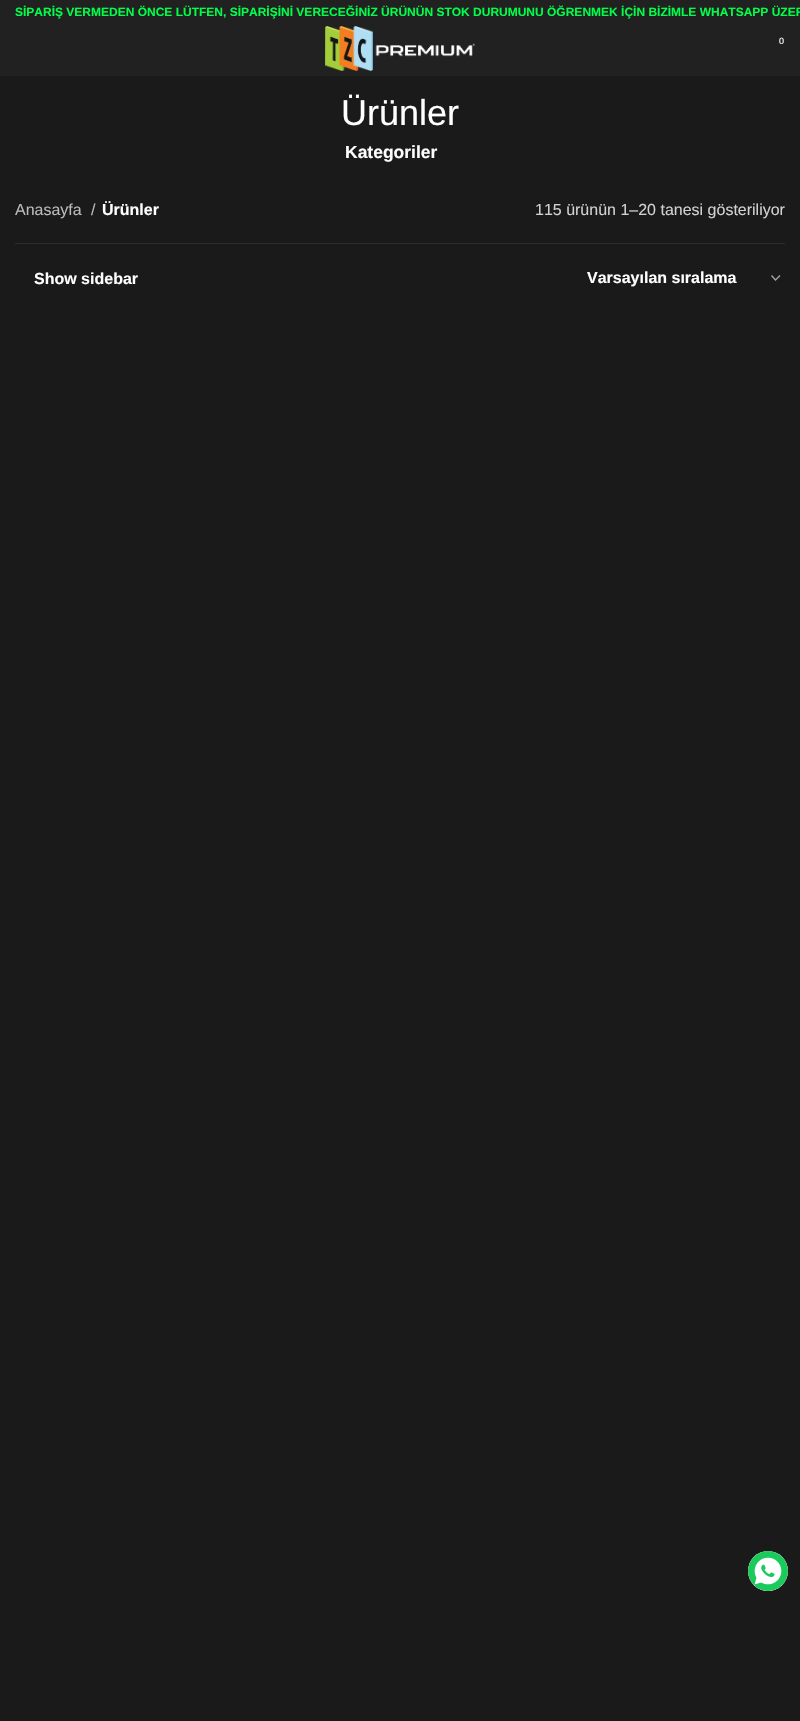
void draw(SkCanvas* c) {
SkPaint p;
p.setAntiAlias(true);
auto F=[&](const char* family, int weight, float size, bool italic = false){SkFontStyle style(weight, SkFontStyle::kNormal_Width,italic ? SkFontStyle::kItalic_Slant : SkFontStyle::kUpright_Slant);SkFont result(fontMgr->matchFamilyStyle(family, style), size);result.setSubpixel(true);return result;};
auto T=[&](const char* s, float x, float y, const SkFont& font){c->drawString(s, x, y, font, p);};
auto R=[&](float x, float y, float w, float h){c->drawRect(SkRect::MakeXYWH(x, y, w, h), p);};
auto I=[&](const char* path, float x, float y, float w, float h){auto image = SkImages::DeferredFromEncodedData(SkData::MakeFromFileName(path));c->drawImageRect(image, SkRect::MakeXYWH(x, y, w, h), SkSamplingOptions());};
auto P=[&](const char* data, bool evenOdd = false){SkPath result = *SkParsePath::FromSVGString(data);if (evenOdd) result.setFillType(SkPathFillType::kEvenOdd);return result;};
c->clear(0xff1a1a1a);
p.setColor(0xff212121);
R(0,0,800,76);
auto f1 = F("Liberation Sans",700,12);
p.setColor(0xff00ff49);
T("SİPARİŞ VERMEDEN ÖNCE LÜTFEN, SİPARİŞİNİ VERECEĞİNİZ ÜRÜNÜN STOK DURUMUNU ÖĞRENMEK İÇİN BİZİMLE WHATSAPP ÜZER",15,16,f1);
I("1.png",325,26,150,45);
auto f2 = F("Liberation Sans",400,9);
p.setColor(0xffffffff);
T("0",779,44,f2);
auto f3 = F("Liberation Sans",400,36);
T("Ürünler",341,125,f3);
auto f4 = F("Liberation Sans",700,17.5);
T("Kategoriler",345,158,f4);
auto f5 = F("Liberation Sans",400,16);
p.setColor(0xffbababa);
T("Anasayfa",15,215,f5);
T("/",91,215,f5);
auto f6 = F("Liberation Sans",700,16);
p.setColor(0xffffffff);
T("Ürünler",102,215,f6);
p.setColor(0xffd1d1d1);
T("115 ürünün 1–20 tanesi gösteriliyor",535,215,f5);
p.setColor(0xff2d2d2d);
R(15,243,770,1);
p.setColor(0xffffffff);
T("Show sidebar",34,284,f6);
p.setStroke(true);
p.setStrokeWidth(1.4);
p.setColor(0xffa3a3a3);
c->drawPath(P("M771.5 275.5l4 4.5l4.5-4.5"),p);
p.setStroke(false);
p.setColor(0xffffffff);
T("Varsayılan sıralama",587,283,f6);
c->drawCircle(768,1571,20,p);
I("2.png",748,1551,40,40);
}
